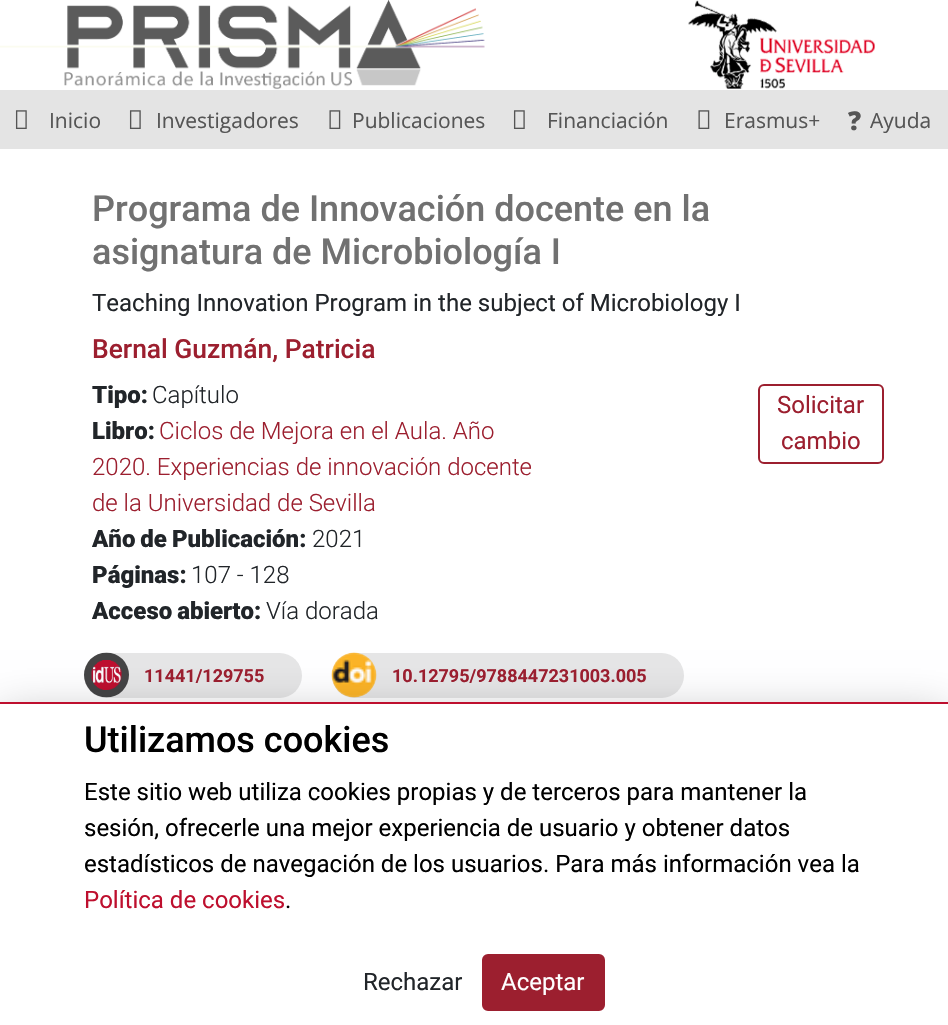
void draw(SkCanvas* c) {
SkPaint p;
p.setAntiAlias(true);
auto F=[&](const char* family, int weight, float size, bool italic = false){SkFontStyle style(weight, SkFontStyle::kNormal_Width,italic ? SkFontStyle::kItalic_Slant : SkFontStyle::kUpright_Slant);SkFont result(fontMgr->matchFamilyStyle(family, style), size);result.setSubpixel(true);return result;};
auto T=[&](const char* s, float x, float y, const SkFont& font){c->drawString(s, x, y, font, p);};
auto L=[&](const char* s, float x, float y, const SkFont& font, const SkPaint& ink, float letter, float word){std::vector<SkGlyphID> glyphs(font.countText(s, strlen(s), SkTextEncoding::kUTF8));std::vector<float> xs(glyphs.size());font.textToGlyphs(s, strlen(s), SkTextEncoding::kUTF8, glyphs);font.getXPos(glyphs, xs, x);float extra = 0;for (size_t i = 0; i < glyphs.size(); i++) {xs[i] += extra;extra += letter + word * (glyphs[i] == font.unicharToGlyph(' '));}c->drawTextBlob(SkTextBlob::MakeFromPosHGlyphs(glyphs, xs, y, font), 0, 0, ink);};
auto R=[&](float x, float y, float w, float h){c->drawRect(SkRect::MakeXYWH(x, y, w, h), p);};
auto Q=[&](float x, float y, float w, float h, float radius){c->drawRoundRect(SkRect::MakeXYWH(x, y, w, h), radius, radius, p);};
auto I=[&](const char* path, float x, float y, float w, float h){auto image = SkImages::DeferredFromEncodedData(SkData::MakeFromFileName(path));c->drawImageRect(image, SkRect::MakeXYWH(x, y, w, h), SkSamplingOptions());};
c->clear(0xffffffff);
I("1.png",0,0,485,90);
I("2.png",688,0,187,89);
p.setColor(0xffe4e4e4);
R(0,90,948,59);
I("3.png",15,110,12,19);
auto f1 = F("Open Sans",400,21);
p.setColor(0xff555555);
T("Inicio",49,128,f1);
I("3.png",129,110,12,19);
T("Investigadores",156,128,f1);
I("4.png",329,110,12,19);
T("Publicaciones",352,128,f1);
I("3.png",513,110,12,19);
T("Financiación",547,128,f1);
I("4.png",698,110,12,19);
T("Erasmus+",724,128,f1);
auto f2 = F("Noto Sans",900,26);
T("?",848,130,f2);
T("Ayuda",870,128,f1);
auto f3 = F("Roboto",500,36);
p.setColor(0xff717171);
T("Programa de Innovación docente en la",92,221,f3);
T("asignatura de Microbiología I",92,264,f3);
auto f4 = F("Roboto",400,24);
p.setColor(0xff212529);
T("Teaching Innovation Program in the subject of Microbiology I",92,311,f4);
auto f5 = F("Roboto",500,26.4);
p.setColor(0xff9c1f2f);
T("Bernal Guzmán, Patricia",92,358,f5);
auto f6 = F("Roboto",900,24);
p.setColor(0xff212529);
T("Tipo:",92,403,f6);
auto f7 = F("Roboto",300,24);
T("Capítulo",152,403,f7);
T("Libro:",92,439,f6);
p.setColor(0xff9c1f2f);
T("Ciclos de Mejora en el Aula. Año",159,439,f7);
T("2020. Experiencias de innovación docente",92,475,f7);
T("de la Universidad de Sevilla",92,511,f7);
p.setColor(0xff212529);
L("Año de Publicación:",92,547,f6,p,0,-1);
T("2021",312,547,f7);
T("Páginas:",92,583,f6);
T("107 - 128",191,583,f7);
L("Acceso abierto:",92,619,f6,p,0,-1);
T("Vía dorada",266,619,f7);
p.setStroke(true);
p.setStrokeWidth(2);
p.setColor(0xff9c1f2f);
c->drawRoundRect(SkRect::MakeXYWH(759,385,124,78),5,5,p);
p.setStroke(false);
T("Solicitar",777,413,f4);
T("cambio",781,449,f4);
p.setColor(0xffe6e6e6);
Q(84,653,218,45,22.5);
I("5.png",84,652,45,46);
auto f8 = F("Roboto",700,18);
p.setColor(0xff9c1f2f);
T("11441/129755",144,682,f8);
p.setColor(0xffe6e6e6);
Q(332,653,352,45,22.5);
I("6.png",331,652,46,46);
p.setColor(0xff9c1f2f);
T("10.12795/9788447231003.005",392,682,f8);
p.setColor(0x4d000002);
p.setMaskFilter(SkMaskFilter::MakeBlur(kNormal_SkBlurStyle, 22.5));
c->drawRect(SkRect::MakeXYWH(0,717,948,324),p);
p.setMaskFilter(nullptr);
p.setColor(0xffffffff);
R(0,704,948,321);
p.setColor(0xffbe0f2e);
R(0,702,948,2);
p.setColor(0xff000000);
T("Utilizamos cookies",84,752,f3);
T("Este sitio web utiliza cookies propias y de terceros para mantener la",84,800,f4);
T("sesión, ofrecerle una mejor experiencia de usuario y obtener datos",84,836,f4);
T("estadísticos de navegación de los usuarios. Para más información vea la",84,872,f4);
p.setColor(0xffbe0f2e);
T("Política de cookies",84,908,f4);
p.setColor(0xff000000);
T(".",285,908,f4);
p.setColor(0xff212529);
T("Rechazar",363,990,f4);
p.setColor(0xff9c1f2f);
c->drawRoundRect(SkRect::MakeXYWH(483,955,121,55),5,5,p);
p.setStroke(true);
c->drawRoundRect(SkRect::MakeXYWH(483,955,121,55),5,5,p);
p.setStroke(false);
p.setColor(0xffffffff);
T("Aceptar",501,990,f4);
}
